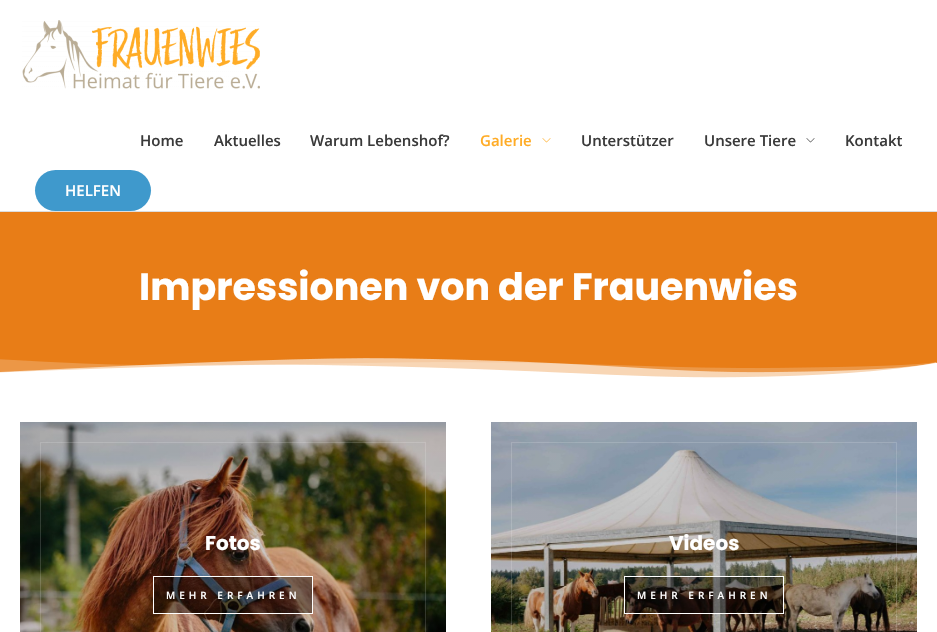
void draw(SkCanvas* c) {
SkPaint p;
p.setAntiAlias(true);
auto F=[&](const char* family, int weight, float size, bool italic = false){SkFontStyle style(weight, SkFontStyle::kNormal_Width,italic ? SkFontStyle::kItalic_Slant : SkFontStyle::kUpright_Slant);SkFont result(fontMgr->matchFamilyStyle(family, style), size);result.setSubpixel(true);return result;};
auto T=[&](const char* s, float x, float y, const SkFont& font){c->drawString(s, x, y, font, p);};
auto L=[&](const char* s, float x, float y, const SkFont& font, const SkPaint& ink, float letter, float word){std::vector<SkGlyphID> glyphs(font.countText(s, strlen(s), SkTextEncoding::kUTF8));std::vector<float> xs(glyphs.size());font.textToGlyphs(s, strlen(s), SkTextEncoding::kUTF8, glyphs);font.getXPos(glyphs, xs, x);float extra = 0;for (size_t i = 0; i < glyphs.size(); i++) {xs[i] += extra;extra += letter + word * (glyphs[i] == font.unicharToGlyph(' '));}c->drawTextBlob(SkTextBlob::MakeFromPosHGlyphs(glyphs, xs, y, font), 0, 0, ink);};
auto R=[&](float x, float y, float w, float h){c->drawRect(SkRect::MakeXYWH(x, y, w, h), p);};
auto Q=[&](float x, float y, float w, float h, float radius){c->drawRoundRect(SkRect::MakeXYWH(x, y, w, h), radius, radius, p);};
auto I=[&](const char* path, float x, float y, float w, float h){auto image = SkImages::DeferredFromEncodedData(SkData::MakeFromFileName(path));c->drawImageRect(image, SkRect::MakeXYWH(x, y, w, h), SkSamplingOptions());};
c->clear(0xffffffff);
p.setColor(0xffdddddd);
R(0,211,937,1);
I("1.png",22,20,238,69);
auto f1 = F("Open Sans",600,15);
p.setColor(0xff3a3a3a);
T("Home",140,146,f1);
T("Aktuelles",214,146,f1);
T("Warum Lebenshof?",310,146,f1);
p.setColor(0xffffac26);
T("Galerie",480,146,f1);
I("2.png",542,138,9,5);
p.setColor(0xff3a3a3a);
T("Unterstützer",581,146,f1);
T("Unsere Tiere",704,146,f1);
I("3.png",806,138,9,5);
T("Kontakt",845,146,f1);
p.setColor(0xff3f99cc);
Q(35,170,116,41,20.5);
p.setColor(0xffffffff);
T("HELFEN",65,196,f1);
p.setColor(0xffe87d17);
R(0,212,937,166);
I("4.png",0,358,937,24);
auto f2 = F("Poppins",700,38);
p.setColor(0xffffffff);
T("Impressionen von der Frauenwies",139,300,f2);
I("5.png",20,422,426,210);
p.setStroke(true);
p.setStrokeWidth(1);
p.setColor(0x26ffffff);
c->drawRect(SkRect::MakeXYWH(40.5,442.5,385,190),p);
auto f3 = F("Poppins",700,20);
p.setStroke(false);
p.setColor(0xffffffff);
T("Fotos",205,550,f3);
p.setColor(0x66000000);
c->drawRect(SkRect::MakeXYWH(153.5,576.5,159,37),p);
p.setStroke(true);
p.setColor(0xffffffff);
c->drawRect(SkRect::MakeXYWH(153.5,576.5,159,37),p);
auto f4 = F("Open Sans",600,10);
p.setStroke(false);
L("MEHR ERFAHREN",166,599,f4,p,4,0);
I("6.png",491,422,426,210);
p.setStroke(true);
p.setColor(0x26ffffff);
c->drawRect(SkRect::MakeXYWH(511.5,442.5,385,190),p);
p.setStroke(false);
p.setColor(0xffffffff);
T("Videos",669,550,f3);
p.setColor(0x66000000);
c->drawRect(SkRect::MakeXYWH(624.5,576.5,159,37),p);
p.setStroke(true);
p.setColor(0xffffffff);
c->drawRect(SkRect::MakeXYWH(624.5,576.5,159,37),p);
p.setStroke(false);
L("MEHR ERFAHREN",637,599,f4,p,4,0);
}
